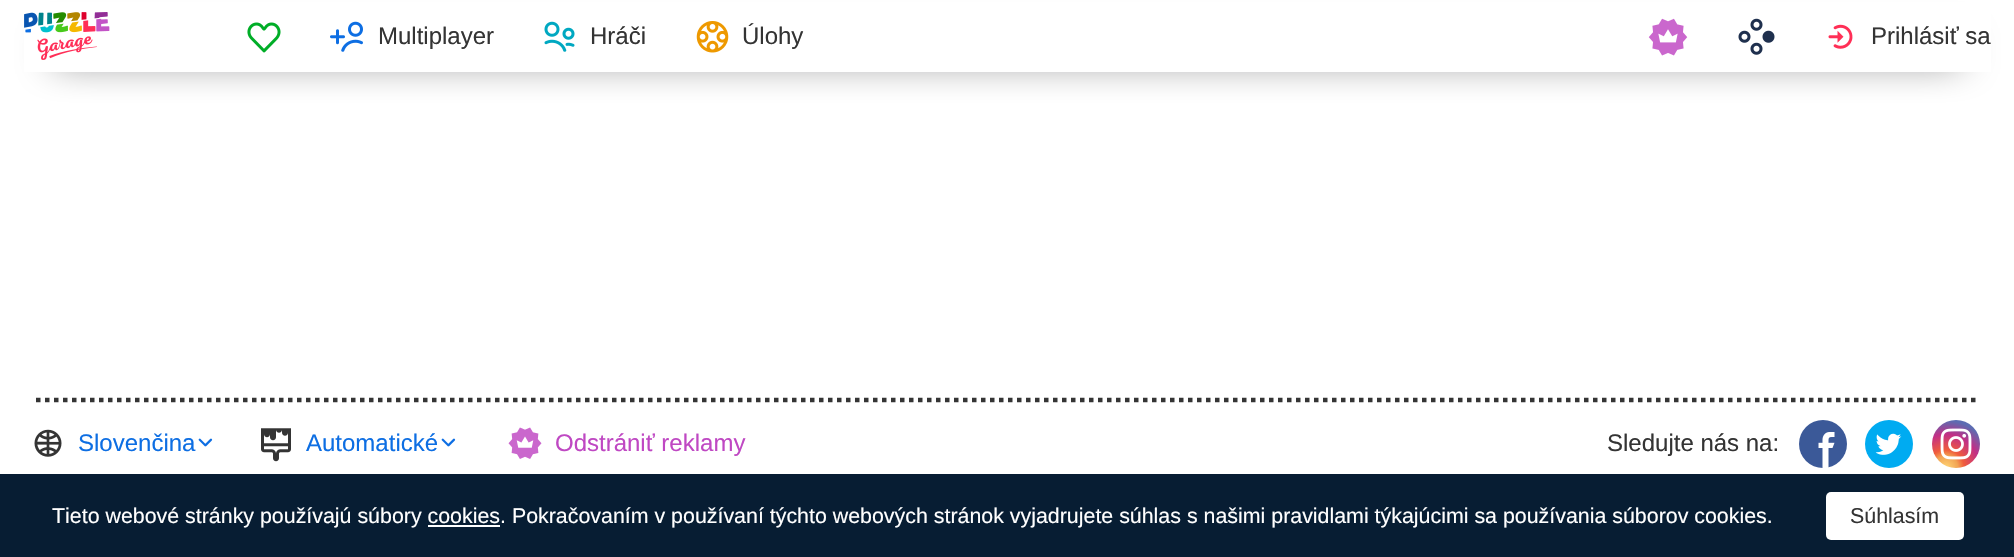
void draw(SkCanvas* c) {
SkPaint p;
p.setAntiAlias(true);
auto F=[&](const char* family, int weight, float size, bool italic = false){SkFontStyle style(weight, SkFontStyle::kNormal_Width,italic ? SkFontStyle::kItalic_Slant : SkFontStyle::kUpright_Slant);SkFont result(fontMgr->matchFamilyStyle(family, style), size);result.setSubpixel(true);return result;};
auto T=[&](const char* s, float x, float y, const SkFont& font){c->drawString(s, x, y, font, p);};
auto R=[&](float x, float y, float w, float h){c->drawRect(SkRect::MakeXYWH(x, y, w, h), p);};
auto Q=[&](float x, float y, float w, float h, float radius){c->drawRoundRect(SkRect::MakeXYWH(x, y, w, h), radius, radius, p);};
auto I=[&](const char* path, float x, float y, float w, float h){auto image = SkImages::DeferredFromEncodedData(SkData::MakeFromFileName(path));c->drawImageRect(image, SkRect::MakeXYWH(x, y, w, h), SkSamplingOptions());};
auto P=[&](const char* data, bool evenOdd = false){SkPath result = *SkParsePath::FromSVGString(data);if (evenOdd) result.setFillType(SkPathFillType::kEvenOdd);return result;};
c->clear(0xffffffff);
p.setColor(0xff010407);
p.setMaskFilter(SkMaskFilter::MakeBlur(kNormal_SkBlurStyle, 19));
c->drawRect(SkRect::MakeXYWH(54,45,1907,12),p);
p.setMaskFilter(nullptr);
p.setColor(0xffffffff);
R(24,2,1967,70);
I("1.png",24,12,86,48);
I("2.png",247,22,34,31);
I("3.png",330,21,33,31);
auto f1 = F("Liberation Sans",400,24);
p.setColor(0xff343434);
T("Multiplayer",378,44,f1);
I("4.png",544,21,31,31);
T("Hráči",590,44,f1);
I("5.png",696,21,33,32);
T("Úlohy",742,44,f1);
I("6.png",1648,18,40,38);
I("7.png",1738,18,37,37);
I("8.png",1828,24,25,25);
T("Prihlásiť sa",1871,44,f1);
p.setStroke(true);
p.setStrokeWidth(4.5);
p.setPathEffect(SkDashPathEffect::Make({{4.5f,4.5f}}, 0));
c->drawPath(P("M36 400h1944"),p);
p.setPathEffect(nullptr);
I("9.png",34,429,28,28);
p.setStroke(false);
p.setColor(0xff0d6ee3);
T("Slovenčina",78,451,f1);
I("10.png",198,438,15,9);
I("11.png",261,428,30,34);
T("Automatické",306,451,f1);
I("10.png",441,438,15,9);
I("12.png",508,427,34,32);
p.setColor(0xffbf48c3);
T("Odstrániť reklamy",555,451,f1);
p.setColor(0xff343434);
T("Sledujte nás na:",1607,451,f1);
p.setColor(0xff3b5998);
c->drawCircle(1823,444,24,p);
I("13.png",1818,432,17,36);
p.setColor(0xff00abf1);
c->drawCircle(1889,444,24,p);
I("14.png",1875,433,27,22);
{
const SkColor colors[] = {0xffffd676,0xfff2a454,0xfff05c3c,0xffc22f86,0xff6666ad,0xff5c6cb2};
const float stops[] = {0,.25,.38,.7,.96,.99};
p.setShader(SkGradientShader::MakeRadial({1946,468}, 48, colors, stops, 6, SkTileMode::kClamp));
p.setAlpha(255);
}
c->drawCircle(1956,444,24,p);
I("15.png",1940,428,32,32);
p.setShader(nullptr);
p.setColor(0xff071d33);
R(0,474,2014,83);
auto f2 = F("Liberation Sans",400,21.38);
p.setColor(0xffffffff);
T("Tieto webové stránky používajú súbory cookies. Pokračovaním v používaní týchto webových stránok vyjadrujete súhlas s našimi pravidlami týkajúcimi sa používania súborov cookies.",52,523,f2);
R(428,525,72,2);
Q(1826,492,138,48,5);
p.setColor(0xff343434);
T("Súhlasím",1850,523,f2);
}
